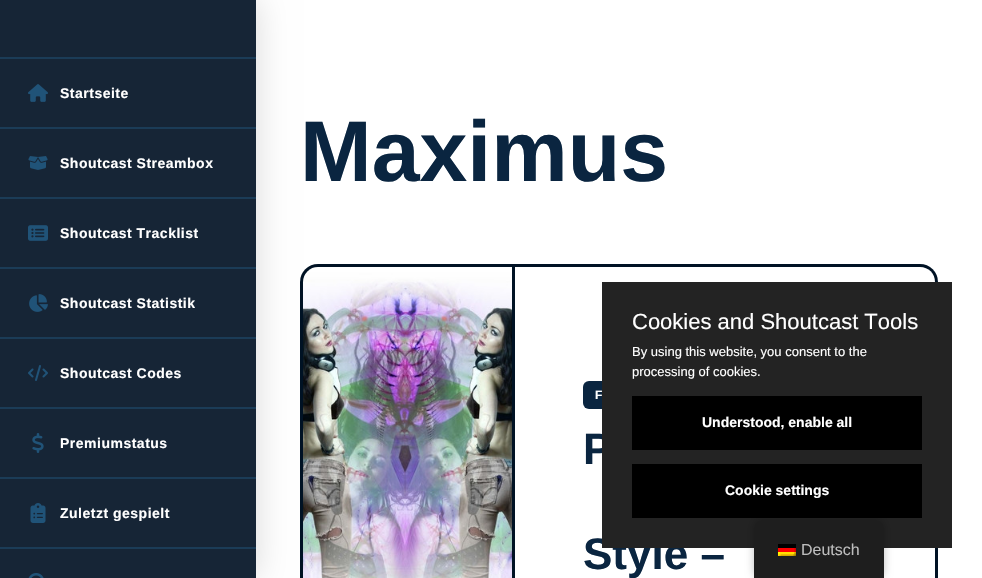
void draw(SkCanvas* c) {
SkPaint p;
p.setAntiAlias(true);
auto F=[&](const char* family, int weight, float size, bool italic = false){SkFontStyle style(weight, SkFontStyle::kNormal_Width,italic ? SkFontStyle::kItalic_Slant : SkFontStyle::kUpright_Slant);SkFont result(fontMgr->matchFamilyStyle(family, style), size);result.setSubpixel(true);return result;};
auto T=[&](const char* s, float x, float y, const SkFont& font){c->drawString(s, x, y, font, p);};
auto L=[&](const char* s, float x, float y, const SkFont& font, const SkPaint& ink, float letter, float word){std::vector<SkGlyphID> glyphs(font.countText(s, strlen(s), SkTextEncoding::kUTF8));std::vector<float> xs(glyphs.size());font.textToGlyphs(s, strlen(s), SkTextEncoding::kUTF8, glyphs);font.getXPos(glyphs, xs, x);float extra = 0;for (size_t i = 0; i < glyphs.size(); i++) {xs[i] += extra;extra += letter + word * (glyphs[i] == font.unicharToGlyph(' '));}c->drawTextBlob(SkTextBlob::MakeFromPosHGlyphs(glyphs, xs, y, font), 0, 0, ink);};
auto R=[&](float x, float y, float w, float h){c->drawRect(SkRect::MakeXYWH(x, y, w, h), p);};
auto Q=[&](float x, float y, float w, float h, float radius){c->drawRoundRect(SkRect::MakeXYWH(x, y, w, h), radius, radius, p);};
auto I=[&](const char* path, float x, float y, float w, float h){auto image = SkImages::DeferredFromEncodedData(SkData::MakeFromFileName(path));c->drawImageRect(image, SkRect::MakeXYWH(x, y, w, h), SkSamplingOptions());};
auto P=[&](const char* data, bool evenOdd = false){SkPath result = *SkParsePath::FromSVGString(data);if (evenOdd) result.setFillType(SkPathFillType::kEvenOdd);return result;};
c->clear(0xffffffff);
p.setColor(0xff001224);
Q(300,264,638,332,18);
I("9.png",303,267,209,311);
p.setColor(0x26000000);
p.setMaskFilter(SkMaskFilter::MakeBlur(kNormal_SkBlurStyle, 16));
c->drawRect(SkRect::MakeXYWH(0,0,256,578),p);
p.setMaskFilter(nullptr);
p.setColor(0xff162536);
R(0,0,256,578);
p.setColor(0xff1b3c57);
R(0,57,256,2);
I("1.png",28,84,20,18);
auto f1 = F("Liberation Sans",700,14);
p.setColor(0xffffffff);
L("Startseite",60,98,f1,p,.5,0);
p.setColor(0xff1b3c57);
R(0,127,256,2);
I("2.png",28,156,20,14);
p.setColor(0xffffffff);
L("Shoutcast Streambox",60,168,f1,p,.5,0);
p.setColor(0xff1b3c57);
R(0,197,256,2);
I("3.png",28,225,20,16);
p.setColor(0xffffffff);
L("Shoutcast Tracklist",60,238,f1,p,.5,0);
p.setColor(0xff1b3c57);
R(0,267,256,2);
I("4.png",29,294,19,18);
p.setColor(0xffffffff);
L("Shoutcast Statistik",60,308,f1,p,.5,0);
p.setColor(0xff1b3c57);
R(0,337,256,2);
I("5.png",28,365,20,16);
p.setColor(0xffffffff);
L("Shoutcast Codes",60,378,f1,p,.5,0);
p.setColor(0xff1b3c57);
R(0,407,256,2);
I("6.png",32,433,12,20);
p.setColor(0xffffffff);
L("Premiumstatus",60,448,f1,p,.5,0);
p.setColor(0xff1b3c57);
R(0,477,256,2);
I("7.png",30,503,16,20);
p.setColor(0xffffffff);
L("Zuletzt gespielt",60,518,f1,p,.5,0);
p.setColor(0xff1b3c57);
R(0,547,256,2);
I("8.png",28,573,16,5);
auto f2 = F("Liberation Sans",700,86);
p.setColor(0xff0a2540);
T("Maximus",300,181,f2);
p.setColor(0xffffffff);
c->drawPath(P("M515 267h405c8.5 0 15 6.5 15 15v296c0 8.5-6.5 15-15 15h-405z"),p);
p.setColor(0xff0a2540);
Q(583,381,112,28,6);
auto f3 = F("Liberation Sans",700,12);
p.setColor(0xffffffff);
T("F",595,399,f3);
auto f4 = F("Liberation Sans",700,44);
p.setColor(0xff0a2540);
T("P",583,464,f4);
T("Style –",583,569,f4);
p.setColor(0xff232323);
R(602,282,350,266);
auto f5 = F("Liberation Sans",400,22);
p.setColor(0xffffffff);
T("Cookies and Shoutcast Tools",632,329,f5);
auto f6 = F("Liberation Sans",400,13);
T("By using this website, you consent to the",632,356,f6);
T("processing of cookies.",632,376,f6);
p.setColor(0xff000000);
R(632,396,290,54);
p.setColor(0xffffffff);
T("Understood, enable all",702,427,f1);
p.setColor(0xff000000);
R(632,464,290,54);
p.setColor(0xffffffff);
T("Cookie settings",725,495,f1);
p.setColor(0x40000000);
p.setMaskFilter(SkMaskFilter::MakeBlur(kNormal_SkBlurStyle, 4));
c->drawRoundRect(SkRect::MakeXYWH(754,520,130,58),8,8,p);
p.setMaskFilter(nullptr);
p.setColor(0xff1e1e1e);
c->drawPath(P("M762 520h114c4.5 0 8 3.5 8 8v50h-130v-50c0-4.5 3.5-8 8-8z"),p);
I("10.png",778,544,18,12);
auto f7 = F("Liberation Sans",400,16);
p.setColor(0xffbdbdbd);
T("Deutsch",801,555,f7);
}
